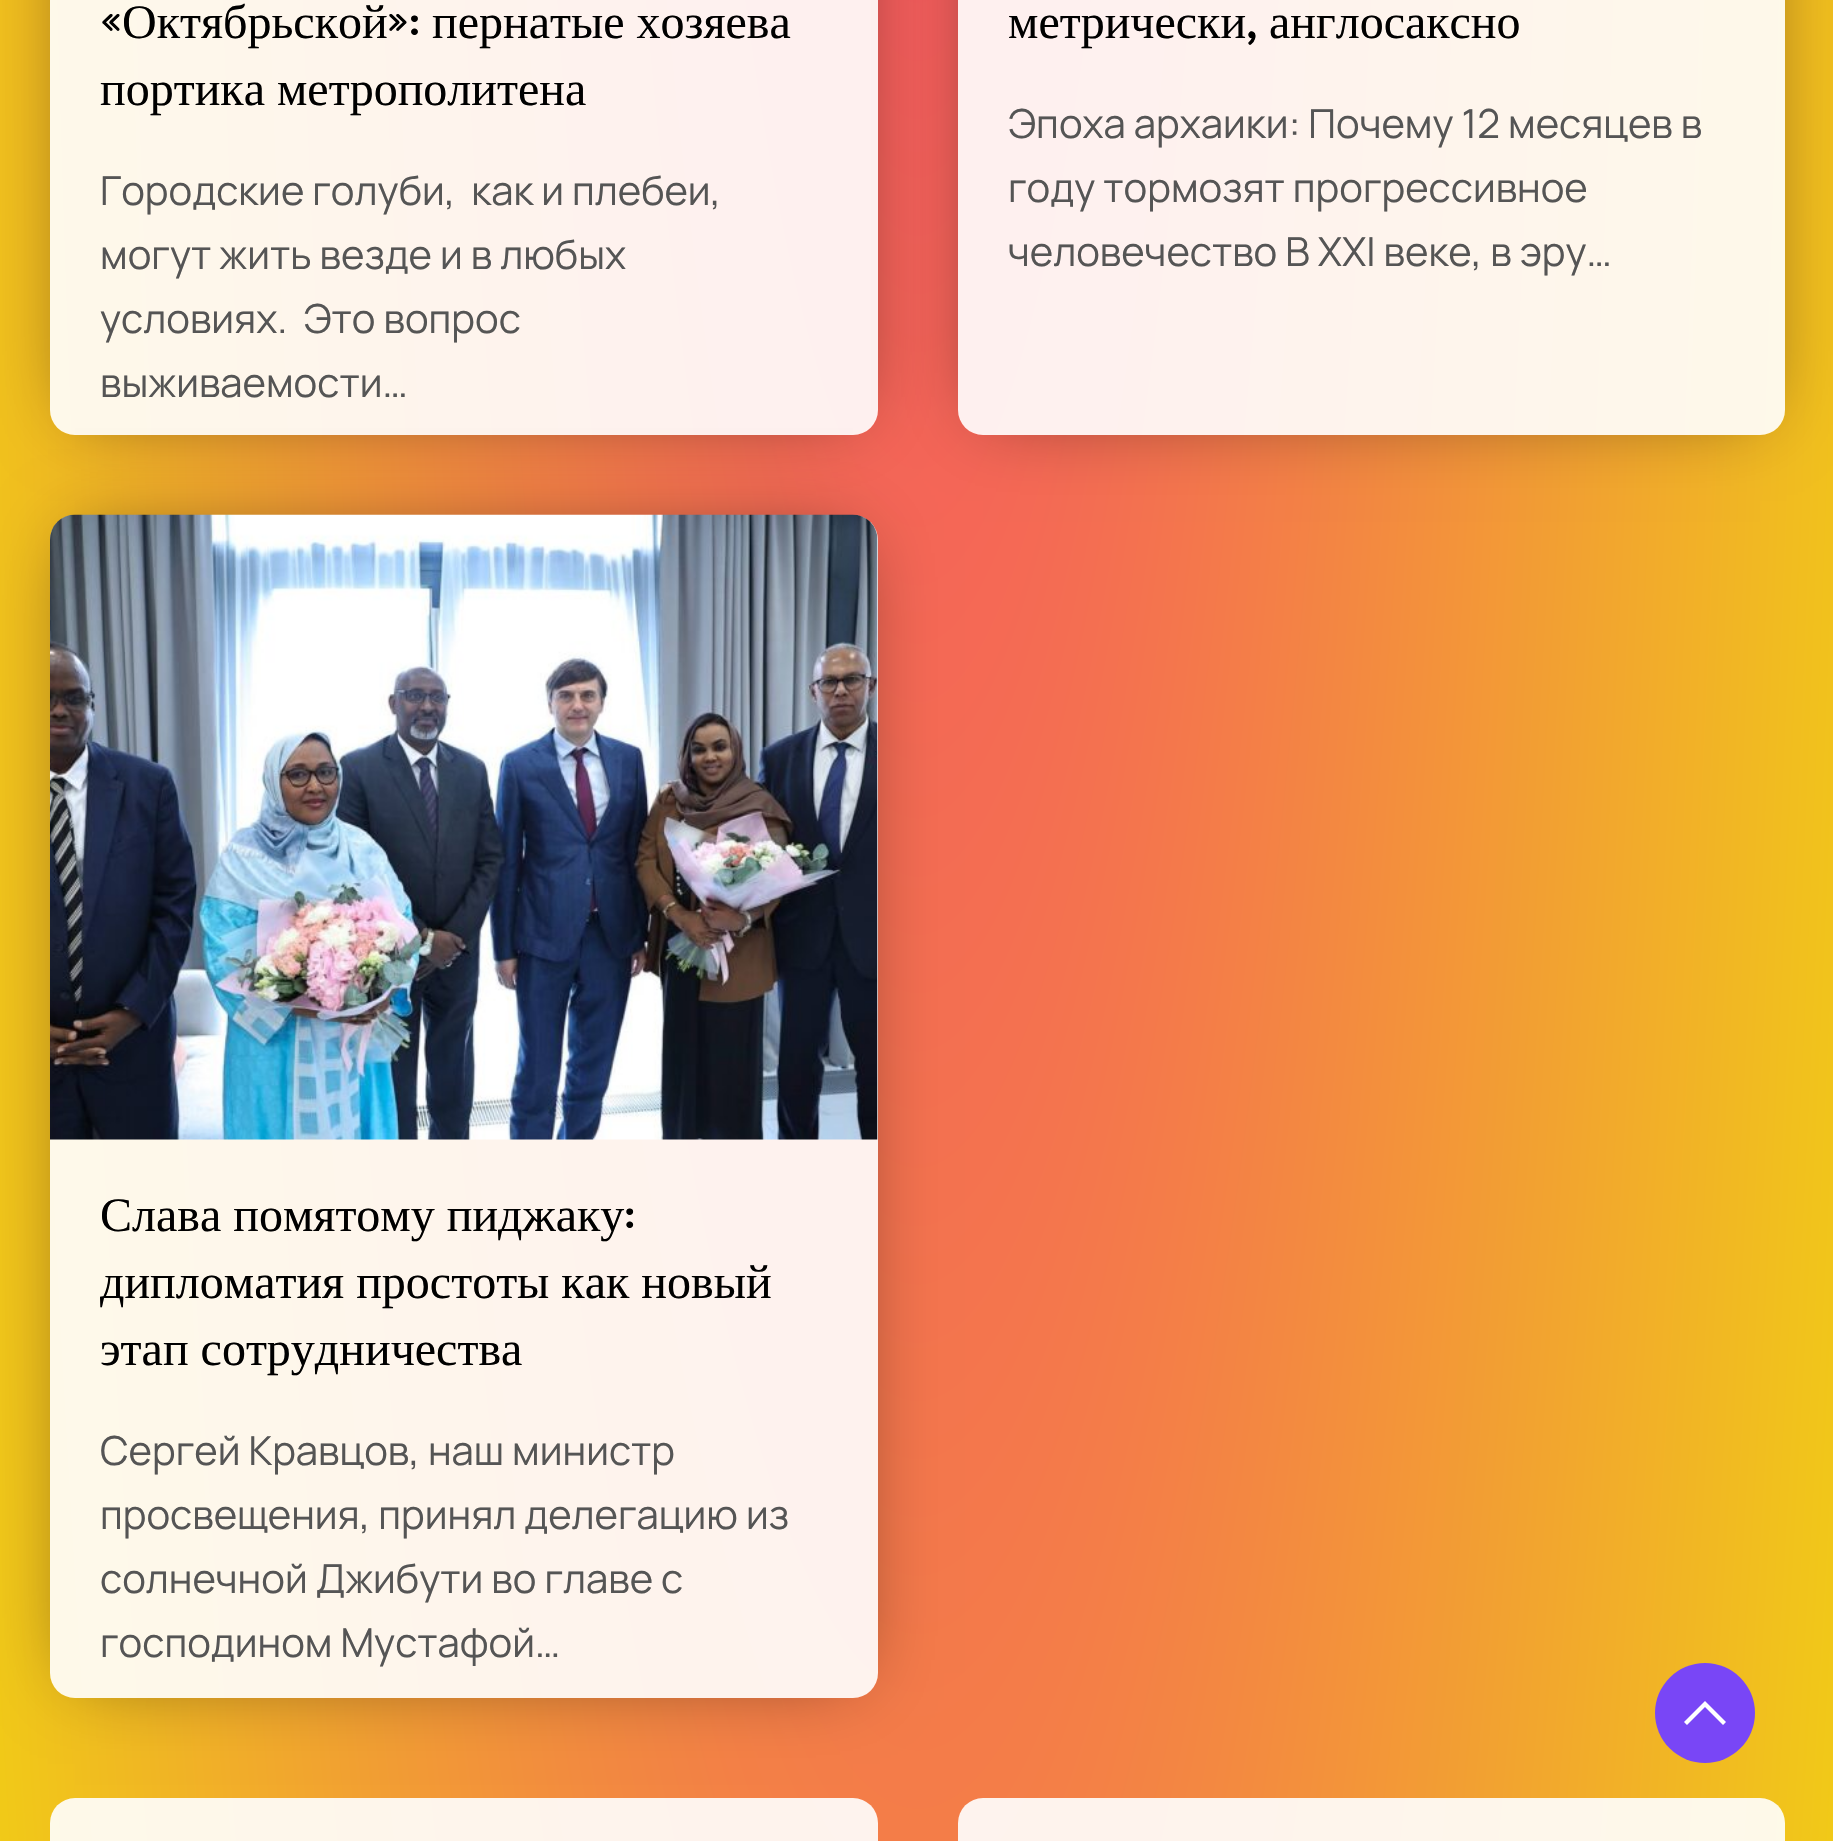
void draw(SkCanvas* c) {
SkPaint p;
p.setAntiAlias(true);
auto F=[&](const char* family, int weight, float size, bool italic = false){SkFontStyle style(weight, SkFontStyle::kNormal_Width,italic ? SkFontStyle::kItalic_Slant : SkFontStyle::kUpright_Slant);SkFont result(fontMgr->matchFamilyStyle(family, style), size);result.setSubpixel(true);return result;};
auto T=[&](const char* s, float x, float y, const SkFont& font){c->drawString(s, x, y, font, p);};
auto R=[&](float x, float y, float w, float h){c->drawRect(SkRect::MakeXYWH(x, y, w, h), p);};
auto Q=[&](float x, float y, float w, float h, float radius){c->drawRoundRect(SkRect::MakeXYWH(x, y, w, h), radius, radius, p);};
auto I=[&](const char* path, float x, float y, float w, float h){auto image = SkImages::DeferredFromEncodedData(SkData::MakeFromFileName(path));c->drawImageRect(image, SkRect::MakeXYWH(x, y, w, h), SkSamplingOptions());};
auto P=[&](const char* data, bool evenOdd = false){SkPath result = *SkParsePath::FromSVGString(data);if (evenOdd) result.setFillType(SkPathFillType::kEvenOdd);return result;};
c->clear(0xffffffff);
{
const SkColor colors[] = {0xfff6466b,0xffefef00};
const float stops[] = {0,1};
SkMatrix m = SkMatrix::Translate(918,-1366).preScale(1298,9845);
p.setShader(SkGradientShader::MakeRadial({0, 0}, 1, colors, stops, 2, SkTileMode::kClamp, 0, &m));
p.setAlpha(255);
}
R(0,0,1833,1841);
c->save();
c->clipPath(P("M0 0h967v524h-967zm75-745h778c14 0 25 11 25 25v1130c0 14-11 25-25 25h-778c-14 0-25-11-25-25v-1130c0-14 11-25 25-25z",true),true);
p.setShader(nullptr);
p.setColor(0x80000000);
p.setMaskFilter(SkMaskFilter::MakeBlur(kNormal_SkBlurStyle, 37.5));
c->drawRect(SkRect::MakeXYWH(75,-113,778,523),p);
p.setMaskFilter(nullptr);
c->restore();
p.setColor(0xe6ffffff);
Q(50,-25,828,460,25);
auto f1 = F("Manjari",400,48);
p.setColor(0xff000000);
T("«",100,38,f1);
auto f2 = F("Liberation Serif",400,48);
T("Октябрьской",122,38,f2);
T("»:",387,38,f1);
T("пернатые хозяева",432,38,f2);
T("портика метрополитена",100,105,f2);
auto f3 = F("Manrope",200,40);
p.setColor(0xff555555);
T("Городские голуби,  как и плебеи,",100,205,f3);
T("могут жить везде и в любых",100,269,f3);
T("условиях.  Это вопрос",100,333,f3);
T("выживаемости…",100,397,f3);
c->save();
c->clipPath(P("M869 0h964v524h-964zm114-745h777c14 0 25 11 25 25v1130c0 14-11 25-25 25h-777c-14 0-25-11-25-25v-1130c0-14 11-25 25-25z",true),true);
p.setColor(0x80000000);
p.setMaskFilter(SkMaskFilter::MakeBlur(kNormal_SkBlurStyle, 37.5));
c->drawRect(SkRect::MakeXYWH(983,-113,777,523),p);
p.setMaskFilter(nullptr);
c->restore();
p.setColor(0xe6ffffff);
Q(958,-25,827,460,25);
p.setColor(0xff000000);
T("метрически",1008,38,f2);
T(",",1246,38,f1);
T("англосаксно",1269,38,f2);
p.setColor(0xff555555);
T("Эпоха архаики: Почему 12 месяцев в",1008,138,f3);
T("году тормозят прогрессивное",1008,202,f3);
T("человечество В XXI веке, в эру…",1008,266,f3);
c->save();
c->clipPath(P("M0 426h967v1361h-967zm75 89h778c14 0 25 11 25 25v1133c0 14-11 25-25 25h-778c-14 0-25-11-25-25v-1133c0-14 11-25 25-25z",true),true);
p.setColor(0x80000000);
p.setMaskFilter(SkMaskFilter::MakeBlur(kNormal_SkBlurStyle, 37.5));
c->drawRect(SkRect::MakeXYWH(75,540,778,1133),p);
p.setMaskFilter(nullptr);
c->restore();
p.setColor(0xe6ffffff);
Q(50,515,828,1183,25);
I("1.png",50,514,828,626);
p.setColor(0xff000000);
T("Слава помятому пиджаку",100,1231,f2);
T(":",624,1231,f1);
T("дипломатия простоты как новый",100,1298,f2);
T("этап сотрудничества",100,1365,f2);
p.setColor(0xff555555);
T("Сергей Кравцов, наш министр",100,1465,f3);
T("просвещения, принял делегацию из",100,1529,f3);
T("солнечной Джибути во главе с",100,1593,f3);
T("господином Мустафой…",100,1657,f3);
p.setColor(0xe6ffffff);
Q(50,1798,828,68,25);
Q(958,1798,827,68,25);
p.setColor(0xff7946f6);
c->drawCircle(1705,1713,50,p);
p.setColor(0xffffffff);
c->drawPath(P("M1726 1722l-3 3l-18-18l-18 18l-3-3l21-21l21 21"),p);
}
